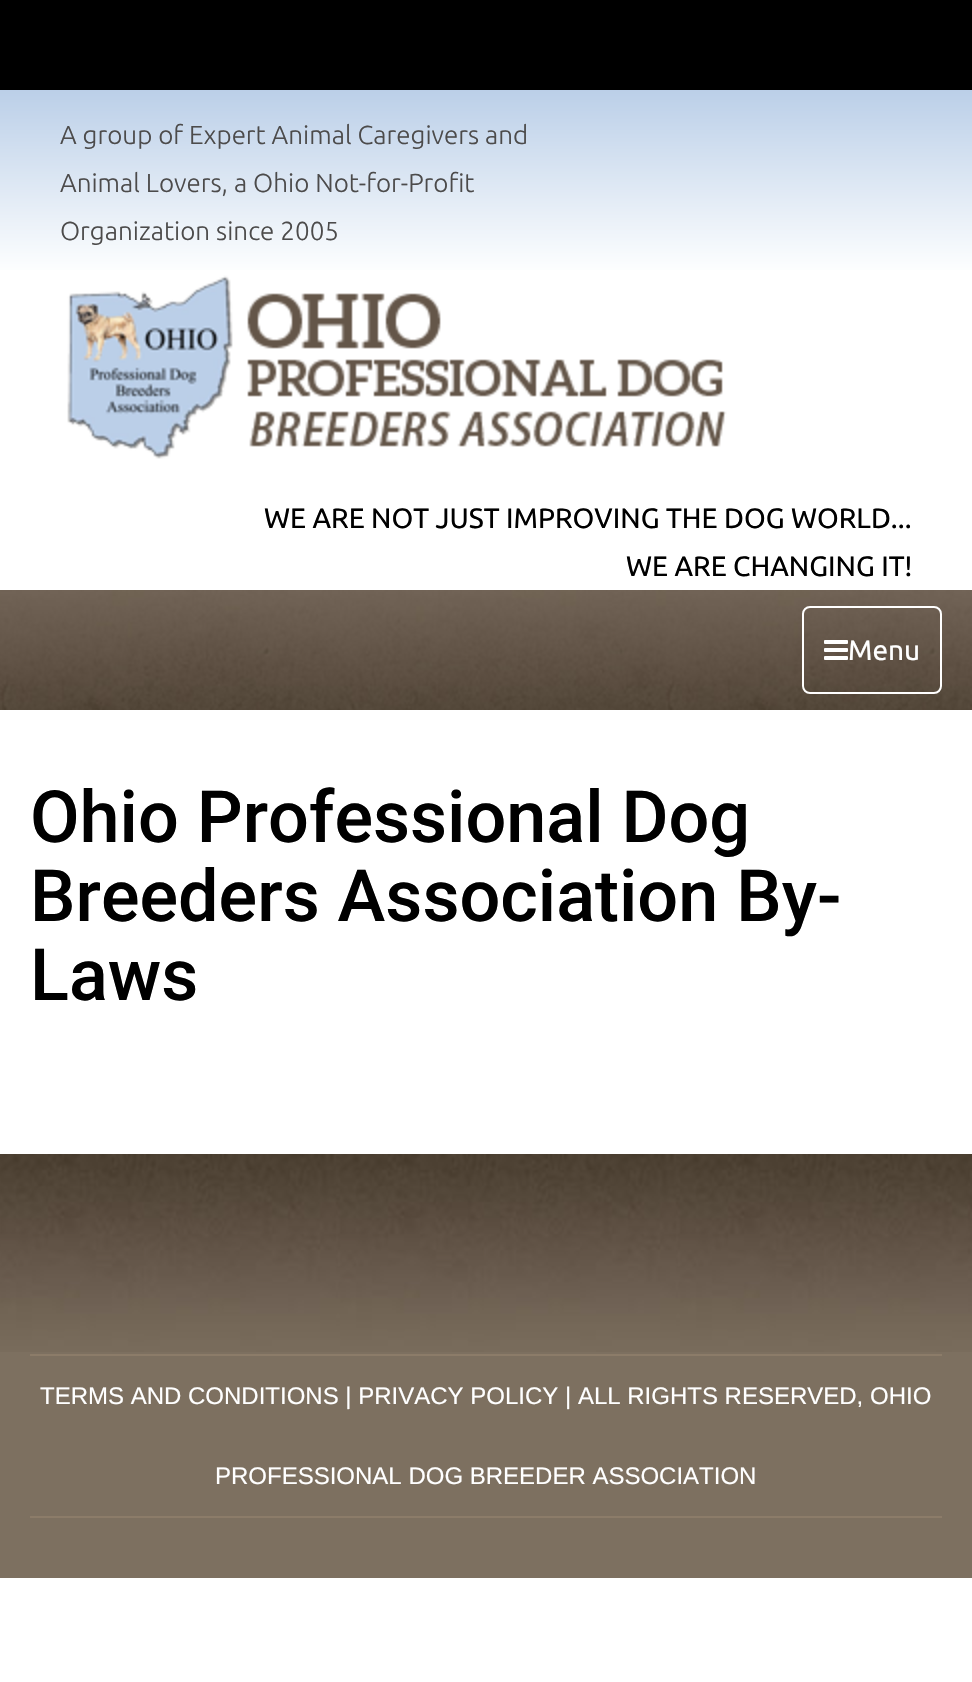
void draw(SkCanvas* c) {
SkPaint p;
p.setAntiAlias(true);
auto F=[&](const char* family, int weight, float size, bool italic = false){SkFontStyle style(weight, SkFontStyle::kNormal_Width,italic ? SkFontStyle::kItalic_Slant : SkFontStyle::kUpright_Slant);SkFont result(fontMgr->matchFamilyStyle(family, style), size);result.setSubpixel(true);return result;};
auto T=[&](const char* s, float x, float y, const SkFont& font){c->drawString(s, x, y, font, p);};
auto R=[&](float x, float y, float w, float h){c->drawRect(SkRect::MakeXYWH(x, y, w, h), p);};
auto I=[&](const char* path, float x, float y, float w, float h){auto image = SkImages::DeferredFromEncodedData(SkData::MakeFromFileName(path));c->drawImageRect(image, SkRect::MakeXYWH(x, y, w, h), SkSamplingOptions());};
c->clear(0xffffffff);
p.setColor(0xff000000);
R(0,0,972,90);
{
const SkColor colors[] = {0xffbbcfe8,0xfffeffff};
const float stops[] = {0,1};
const SkPoint ends[] = {{486,90}, {486,274}};
p.setShader(SkGradientShader::MakeLinear(ends, colors, stops, 2, SkTileMode::kClamp));
p.setAlpha(255);
}
R(0,90,972,180);
auto f1 = F("Ubuntu",300,26);
p.setShader(nullptr);
p.setColor(0xff4c4b4b);
T("A group of Expert Animal Caregivers and",60,144,f1);
T("Animal Lovers, a Ohio Not-for-Profit",60,192,f1);
T("Organization since 2005",60,240,f1);
I("1.png",67,275,660,184);
auto f2 = F("Ubuntu",400,28);
p.setColor(0xff000000);
T("WE ARE NOT JUST IMPROVING THE DOG WORLD...",264,528,f2);
T("WE ARE CHANGING IT!",626,576,f2);
I("2.png",0,590,972,120);
p.setStroke(true);
p.setStrokeWidth(2);
p.setColor(0xffffffff);
c->drawRoundRect(SkRect::MakeXYWH(803,607,138,86),7,7,p);
I("3.png",824,640,24,20);
p.setStroke(false);
T("Menu",848,660,f2);
auto f3 = F("Roboto",500,72);
p.setColor(0xff000000);
T("Ohio Professional Dog",30,842,f3);
T("Breeders Association By-",30,921,f3);
T("Laws",30,1000,f3);
p.setColor(0xff7d7060);
R(0,1352,972,226);
I("4.png",0,1154,972,198);
p.setColor(0xff8c7c69);
R(30,1354,912,2);
R(30,1516,912,2);
auto f4 = F("Liberation Sans",400,24);
p.setColor(0xffffffff);
T("TERMS AND CONDITIONS | PRIVACY POLICY | ALL RIGHTS RESERVED, OHIO",40,1404,f4);
T("PROFESSIONAL DOG BREEDER ASSOCIATION",215,1484,f4);
}
